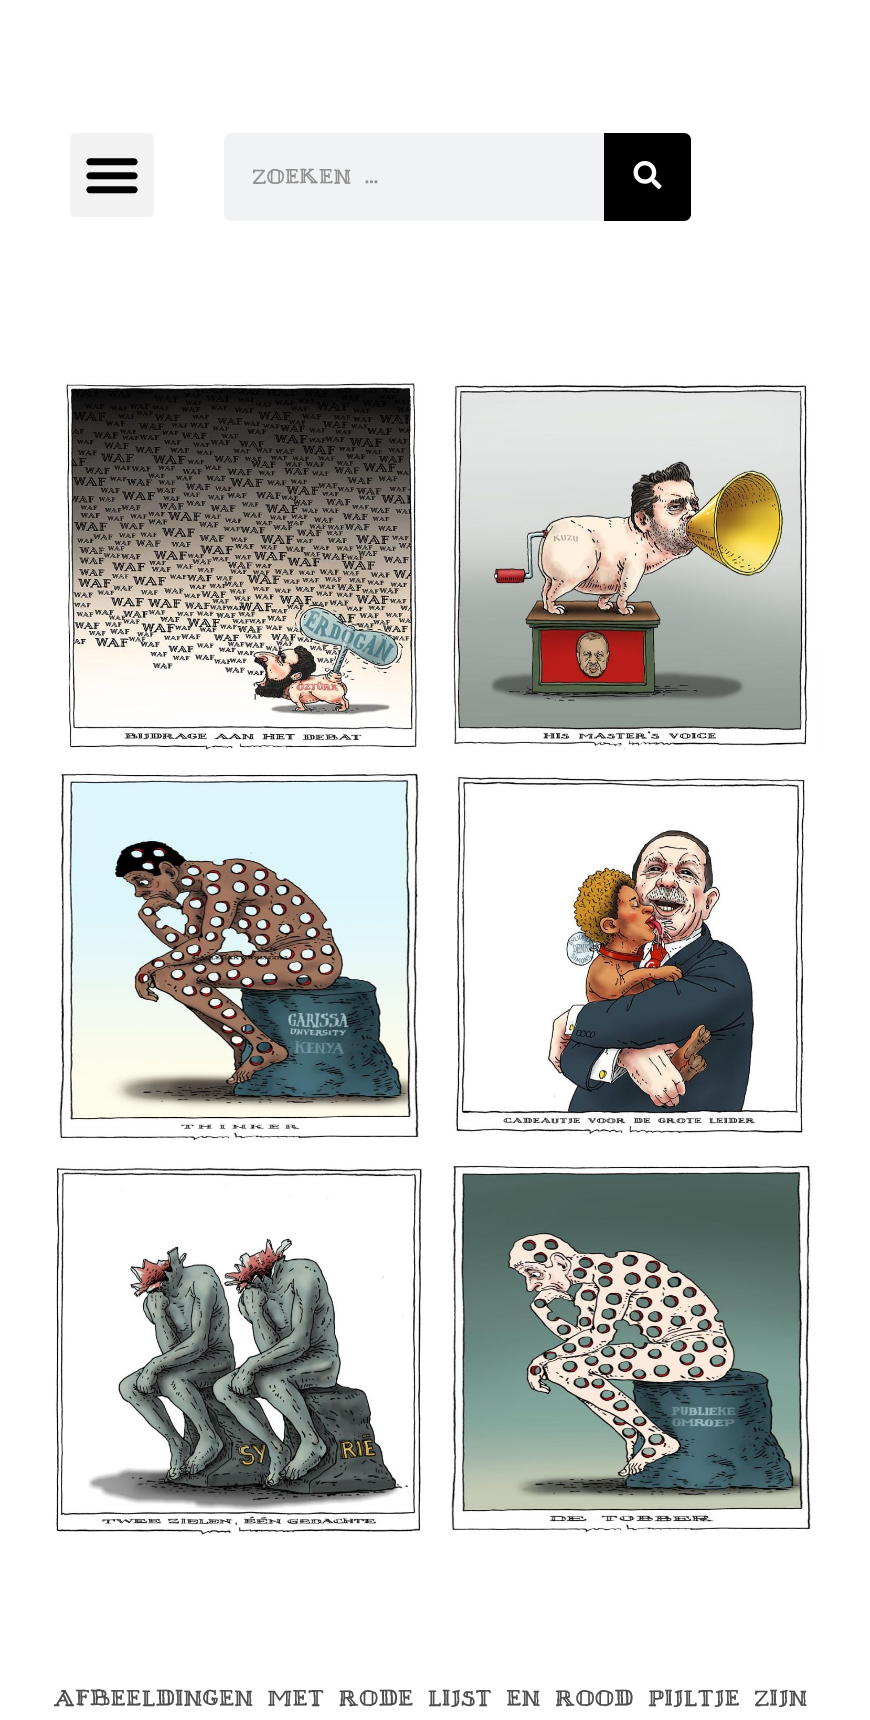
void draw(SkCanvas* c) {
SkPaint p;
p.setAntiAlias(true);
auto F=[&](const char* family, int weight, float size, bool italic = false){SkFontStyle style(weight, SkFontStyle::kNormal_Width,italic ? SkFontStyle::kItalic_Slant : SkFontStyle::kUpright_Slant);SkFont result(fontMgr->matchFamilyStyle(family, style), size);result.setSubpixel(true);return result;};
auto T=[&](const char* s, float x, float y, const SkFont& font){c->drawString(s, x, y, font, p);};
auto Q=[&](float x, float y, float w, float h, float radius){c->drawRoundRect(SkRect::MakeXYWH(x, y, w, h), radius, radius, p);};
auto I=[&](const char* path, float x, float y, float w, float h){auto image = SkImages::DeferredFromEncodedData(SkData::MakeFromFileName(path));c->drawImageRect(image, SkRect::MakeXYWH(x, y, w, h), SkSamplingOptions());};
auto P=[&](const char* data, bool evenOdd = false){SkPath result = *SkParsePath::FromSVGString(data);if (evenOdd) result.setFillType(SkPathFillType::kEvenOdd);return result;};
c->clear(0xffffffff);
p.setColor(0xfff2f2f2);
Q(70,133,84,84,5);
I("1.png",86,158,52,36);
p.setColor(0xfff1f2f3);
Q(224,133,467,88,7);
auto f1 = F("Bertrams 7",400,26.25);
p.setColor(0xff8f8f8f);
T("Zoeken ...",252,183,f1);
p.setColor(0xff000000);
c->drawPath(P("M604 133h80c4 0 7 3 7 7v74c0 4-3 7-7 7h-80z"),p);
I("2.png",633,161,29,28);
I("3.png",65,382,353,370);
I("4.png",453,383,366,368);
I("5.png",58,772,365,369);
I("6.png",449,775,356,360);
I("7.png",53,1167,369,369);
I("8.png",450,1163,365,372);
auto f2 = F("Bertrams 7",400,28);
p.setColor(0xff4d4d4d);
T("Afbeeldingen met rode lijst en rood pijltje zijn",53,1705,f2);
}
